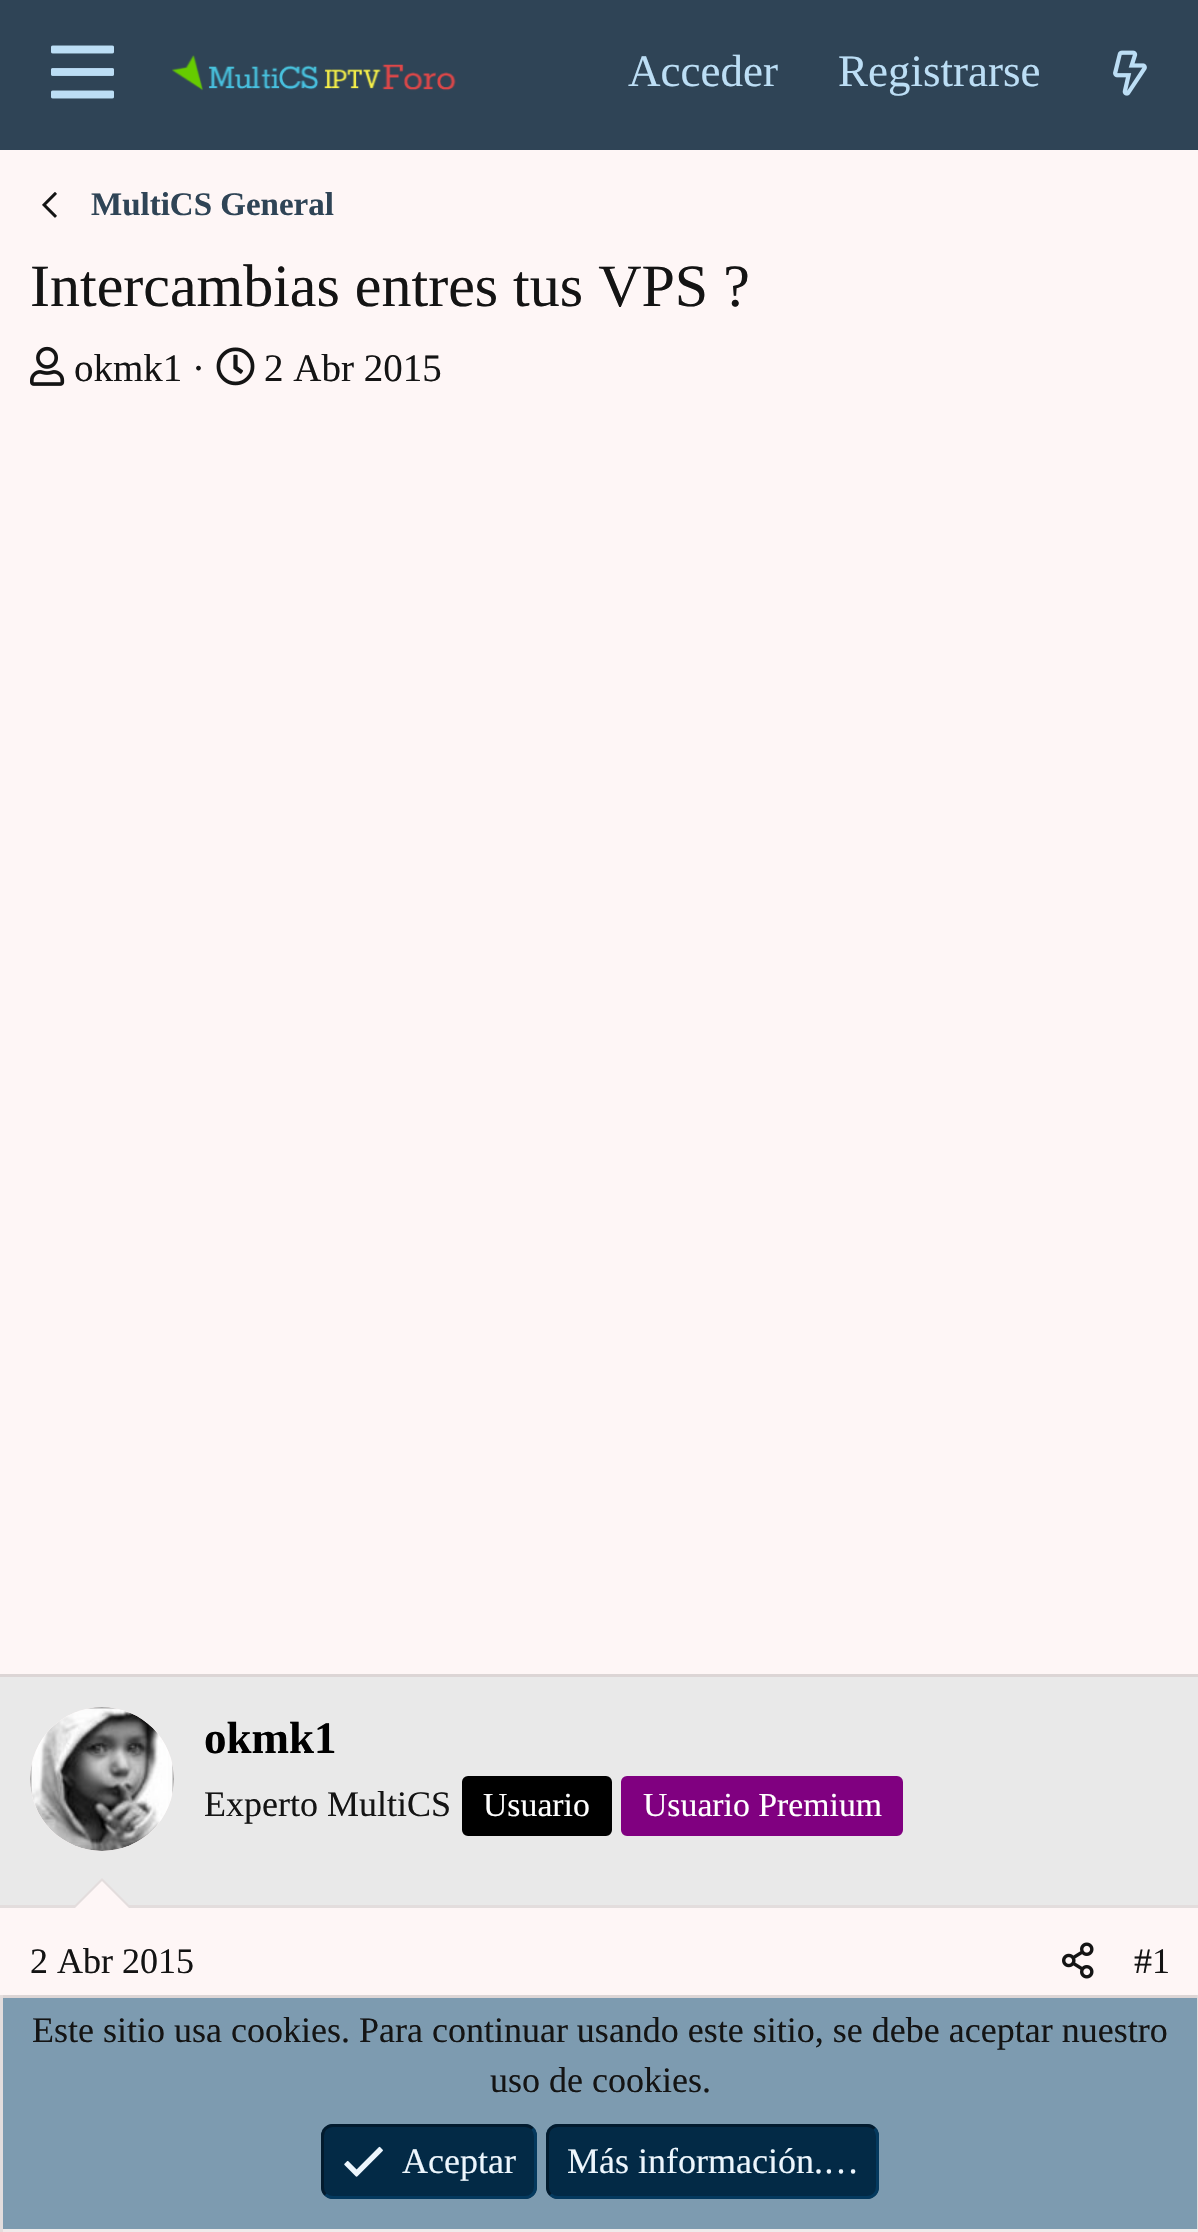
void draw(SkCanvas* c) {
SkPaint p;
p.setAntiAlias(true);
auto F=[&](const char* family, int weight, float size, bool italic = false){SkFontStyle style(weight, SkFontStyle::kNormal_Width,italic ? SkFontStyle::kItalic_Slant : SkFontStyle::kUpright_Slant);SkFont result(fontMgr->matchFamilyStyle(family, style), size);result.setSubpixel(true);return result;};
auto T=[&](const char* s, float x, float y, const SkFont& font){c->drawString(s, x, y, font, p);};
auto R=[&](float x, float y, float w, float h){c->drawRect(SkRect::MakeXYWH(x, y, w, h), p);};
auto Q=[&](float x, float y, float w, float h, float radius){c->drawRoundRect(SkRect::MakeXYWH(x, y, w, h), radius, radius, p);};
auto I=[&](const char* path, float x, float y, float w, float h){auto image = SkImages::DeferredFromEncodedData(SkData::MakeFromFileName(path));c->drawImageRect(image, SkRect::MakeXYWH(x, y, w, h), SkSamplingOptions());};
auto P=[&](const char* data, bool evenOdd = false){SkPath result = *SkParsePath::FromSVGString(data);if (evenOdd) result.setFillType(SkPathFillType::kEvenOdd);return result;};
c->clear(0xfffef6f6);
p.setColor(0xff2f4456);
R(0,0,1198,150);
I("1.png",51,45,63,54);
I("2.png",172,55,284,36);
auto f1 = F("Liberation Serif",400,45);
p.setColor(0xffbcdef5);
T("Acceder",628,86,f1);
T("Registrarse",838,86,f1);
I("3.png",1113,50,34,46);
I("4.png",42,192,15,26);
auto f2 = F("Liberation Serif",700,33);
p.setColor(0xff2f4456);
T("MultiCS General",91,215,f2);
auto f3 = F("Liberation Serif",400,60);
p.setColor(0xff141414);
T("Intercambias entres tus VPS ?",30,306,f3);
I("5.png",30,346,35,40);
auto f4 = F("Liberation Serif",400,39);
T("okmk1 ·",74,381,f4);
I("6.png",216,347,39,39);
T("2 Abr 2015",264,381,f4);
p.setColor(0xffdcd5d5);
R(0,1674,1198,3);
p.setColor(0xffe9e9e9);
R(0,1677,1198,228);
p.setColor(0xffe3dddd);
R(0,1905,1198,3);
p.setColor(0xfffef6f6);
c->drawCircle(102,1779,72,p);
I("7.png",30,1707,144,144);
auto f5 = F("Liberation Serif",700,45);
p.setColor(0xff000000);
T("okmk1",204,1753,f5);
auto f6 = F("Liberation Serif",400,36);
p.setColor(0xff141414);
T("Experto MultiCS",204,1816,f6);
p.setColor(0xff000000);
c->drawRoundRect(SkRect::MakeXYWH(463.5,1777.5,147,57),4.5,4.5,p);
p.setStroke(true);
p.setStrokeWidth(3);
c->drawRoundRect(SkRect::MakeXYWH(463.5,1777.5,147,57),4.5,4.5,p);
auto f7 = F("Liberation Serif",400,33.75);
p.setStroke(false);
p.setColor(0xffffffff);
T("Usuario",483,1816,f7);
p.setColor(0xff800080);
c->drawRoundRect(SkRect::MakeXYWH(622.5,1777.5,279,57),4.5,4.5,p);
p.setStroke(true);
c->drawRoundRect(SkRect::MakeXYWH(622.5,1777.5,279,57),4.5,4.5,p);
p.setStroke(false);
p.setColor(0xffffffff);
T("Usuario Premium",643,1816,f7);
p.setColor(0xffe3dddd);
c->drawPath(P("M132 1908h-60l30-30z"),p);
p.setColor(0xfffef6f6);
c->drawPath(P("M129 1908h-54l27-27z"),p);
p.setColor(0xff141414);
T("2 Abr 2015",30,1973,f6);
I("8.png",1062,1942,32,37);
T("#1",1134,1973,f6);
p.setColor(0xff7d9bb0);
R(3,1998,1194,231);
p.setColor(0xffdcd5d5);
R(0,1995,1198,3);
p.setColor(0xffe3dddd);
R(1197,1995,1,237);
p.setColor(0xffefebeb);
R(0,2229,1198,3);
p.setColor(0xffe3dddd);
R(0,1995,3,237);
p.setColor(0xff141414);
T("Este sitio usa cookies. Para continuar usando este sitio, se debe aceptar nuestro",32,2042,f6);
T("uso de cookies.",490,2092,f6);
p.setColor(0xff032a46);
Q(321,2124,216,75,12);
p.setStroke(true);
p.setColor(0xff04395e);
c->drawPath(P("M532.5 2128.5c2 2 3 4.5 3 7.5v51c0 3-1 5.5-3 7.5c-2 2-4.5 3-7.5 3h-192c-3 0-5.5-1-7.5-3"),p);
p.setColor(0xff021b2e);
c->drawPath(P("M325.5 2194.5c-2-2-3-4.5-3-7.5v-51c0-3 1-5.5 3-7.5c2-2 4.5-3 7.5-3h192c3 0 5.5 1 7.5 3"),p);
I("9.png",344,2146,39,31);
p.setStroke(false);
p.setColor(0xffedf6fd);
T("Aceptar",402,2173,f6);
p.setColor(0xff032a46);
Q(546,2124,333,75,12);
p.setStroke(true);
p.setColor(0xff04395e);
c->drawPath(P("M874.5 2128.5c2 2 3 4.5 3 7.5v51c0 3-1 5.5-3 7.5c-2 2-4.5 3-7.5 3h-309c-3 0-5.5-1-7.5-3"),p);
p.setColor(0xff021b2e);
c->drawPath(P("M550.5 2194.5c-2-2-3-4.5-3-7.5v-51c0-3 1-5.5 3-7.5c2-2 4.5-3 7.5-3h309c3 0 5.5 1 7.5 3"),p);
p.setStroke(false);
p.setColor(0xffedf6fd);
T("Más información.…",567,2173,f6);
}
